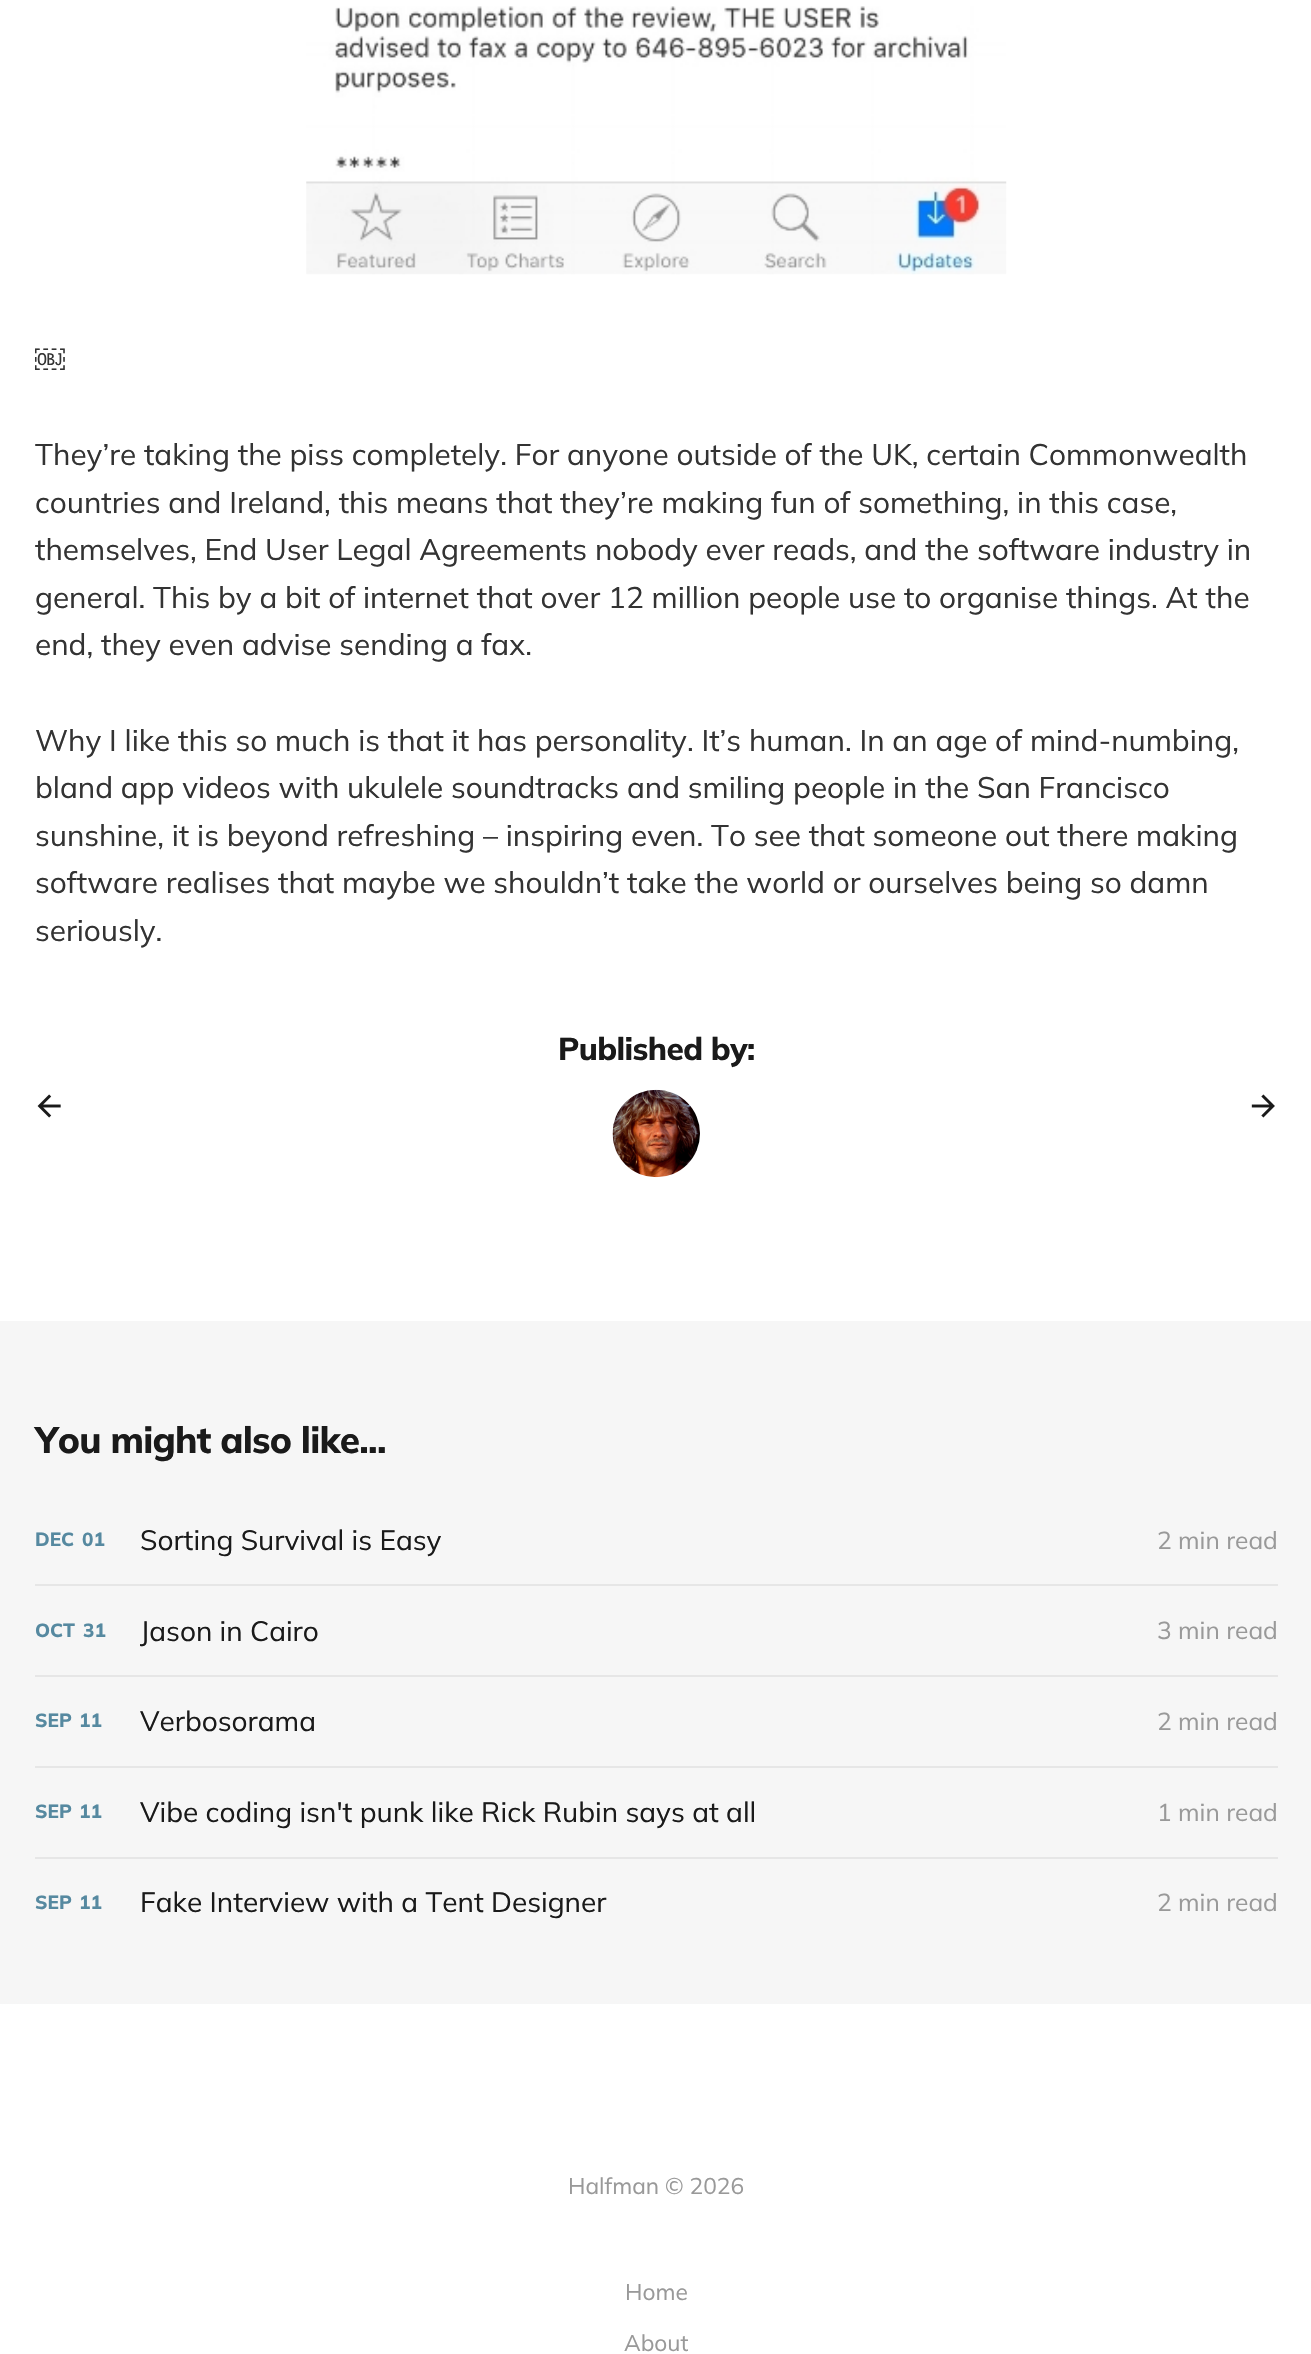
void draw(SkCanvas* c) {
SkPaint p;
p.setAntiAlias(true);
auto F=[&](const char* family, int weight, float size, bool italic = false){SkFontStyle style(weight, SkFontStyle::kNormal_Width,italic ? SkFontStyle::kItalic_Slant : SkFontStyle::kUpright_Slant);SkFont result(fontMgr->matchFamilyStyle(family, style), size);result.setSubpixel(true);return result;};
auto T=[&](const char* s, float x, float y, const SkFont& font){c->drawString(s, x, y, font, p);};
auto L=[&](const char* s, float x, float y, const SkFont& font, const SkPaint& ink, float letter, float word){std::vector<SkGlyphID> glyphs(font.countText(s, strlen(s), SkTextEncoding::kUTF8));std::vector<float> xs(glyphs.size());font.textToGlyphs(s, strlen(s), SkTextEncoding::kUTF8, glyphs);font.getXPos(glyphs, xs, x);float extra = 0;for (size_t i = 0; i < glyphs.size(); i++) {xs[i] += extra;extra += letter + word * (glyphs[i] == font.unicharToGlyph(' '));}c->drawTextBlob(SkTextBlob::MakeFromPosHGlyphs(glyphs, xs, y, font), 0, 0, ink);};
auto R=[&](float x, float y, float w, float h){c->drawRect(SkRect::MakeXYWH(x, y, w, h), p);};
auto I=[&](const char* path, float x, float y, float w, float h){auto image = SkImages::DeferredFromEncodedData(SkData::MakeFromFileName(path));c->drawImageRect(image, SkRect::MakeXYWH(x, y, w, h), SkSamplingOptions());};
c->clear(0xffffffff);
I("1.png",306,6,701,269);
auto f1 = F("Liberation Sans",400,29.75);
p.setColor(0xff333333);
T("￼",35,370,f1);
auto f2 = F("Mulish",200,29.75);
T("They’re taking the piss completely. For anyone outside of the UK, certain Commonwealth",35,465,f2);
T("countries and Ireland, this means that they’re making fun of something, in this case,",35,513,f2);
T("themselves, End User Legal Agreements nobody ever reads, and the software industry in",35,560,f2);
T("general. This by a bit of internet that over 12 million people use to organise things. At the",35,608,f2);
T("end, they even advise sending a fax.",35,655,f2);
T("Why I like this so much is that it has personality. It’s human. In an age of mind-numbing,",35,751,f2);
T("bland app videos with ukulele soundtracks and smiling people in the San Francisco",35,798,f2);
T("sunshine, it is beyond refreshing – inspiring even. To see that someone out there making",35,846,f2);
T("software realises that maybe we shouldn’t take the world or ourselves being so damn",35,893,f2);
T("seriously.",35,941,f2);
auto f3 = F("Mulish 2",200,31.5);
p.setColor(0xff1a1a1a);
L("Published by:",558,1060,f3,p,-.6,0);
p.setColor(0xfff6f6f6);
c->drawRoundRect(SkRect::MakeXYWH(611,1089,91,90),45,45,p);
p.setStroke(true);
p.setStrokeWidth(4);
p.setColor(0xffffffff);
c->drawRoundRect(SkRect::MakeXYWH(611,1089,91,90),45,45,p);
I("2.png",612,1089,88,89);
I("3.png",37,1094,24,24);
I("4.png",1251,1094,24,24);
p.setStroke(false);
p.setColor(0xfff6f6f6);
R(0,1321,1311,683);
auto f4 = F("Mulish 2",200,36.75);
p.setColor(0xff1a1a1a);
L("You might also like...",35,1453,f4,p,-.75,0);
auto f5 = F("Mulish 2",200,19);
p.setColor(0xff5689a0);
T("DEC",35,1546,f5);
T("01",82,1546,f5);
auto f6 = F("Mulish",200,28);
p.setColor(0xff1a1a1a);
T("Sorting Survival is Easy",140,1550,f6);
auto f7 = F("Mulish",200,24.5);
p.setColor(0xff999999);
T("2 min read",1157,1549,f7);
p.setColor(0xffe6e6e6);
R(35,1584,1243,2);
p.setColor(0xff5689a0);
T("OCT",35,1637,f5);
T("31",83,1637,f5);
p.setColor(0xff1a1a1a);
T("Jason in Cairo",140,1641,f6);
p.setColor(0xff999999);
T("3 min read",1157,1639,f7);
p.setColor(0xffe6e6e6);
R(35,1675,1243,2);
p.setColor(0xff5689a0);
T("SEP",35,1727,f5);
T("11",79,1727,f5);
p.setColor(0xff1a1a1a);
T("Verbosorama",140,1731,f6);
p.setColor(0xff999999);
T("2 min read",1157,1730,f7);
p.setColor(0xffe6e6e6);
R(35,1766,1243,2);
p.setColor(0xff5689a0);
T("SEP",35,1818,f5);
T("11",79,1818,f5);
p.setColor(0xff1a1a1a);
T("Vibe coding isn't punk like Rick Rubin says at all",140,1822,f6);
p.setColor(0xff999999);
T("1 min read",1157,1821,f7);
p.setColor(0xffe6e6e6);
R(35,1857,1243,2);
p.setColor(0xff5689a0);
T("SEP",35,1909,f5);
T("11",79,1909,f5);
p.setColor(0xff1a1a1a);
T("Fake Interview with a Tent Designer",140,1912,f6);
p.setColor(0xff999999);
T("2 min read",1157,1911,f7);
auto f8 = F("Mulish",200,22.75);
T("Halfman © 2026",568,2194,f8);
T("Home",625,2300,f8);
T("About",624,2351,f8);
}
